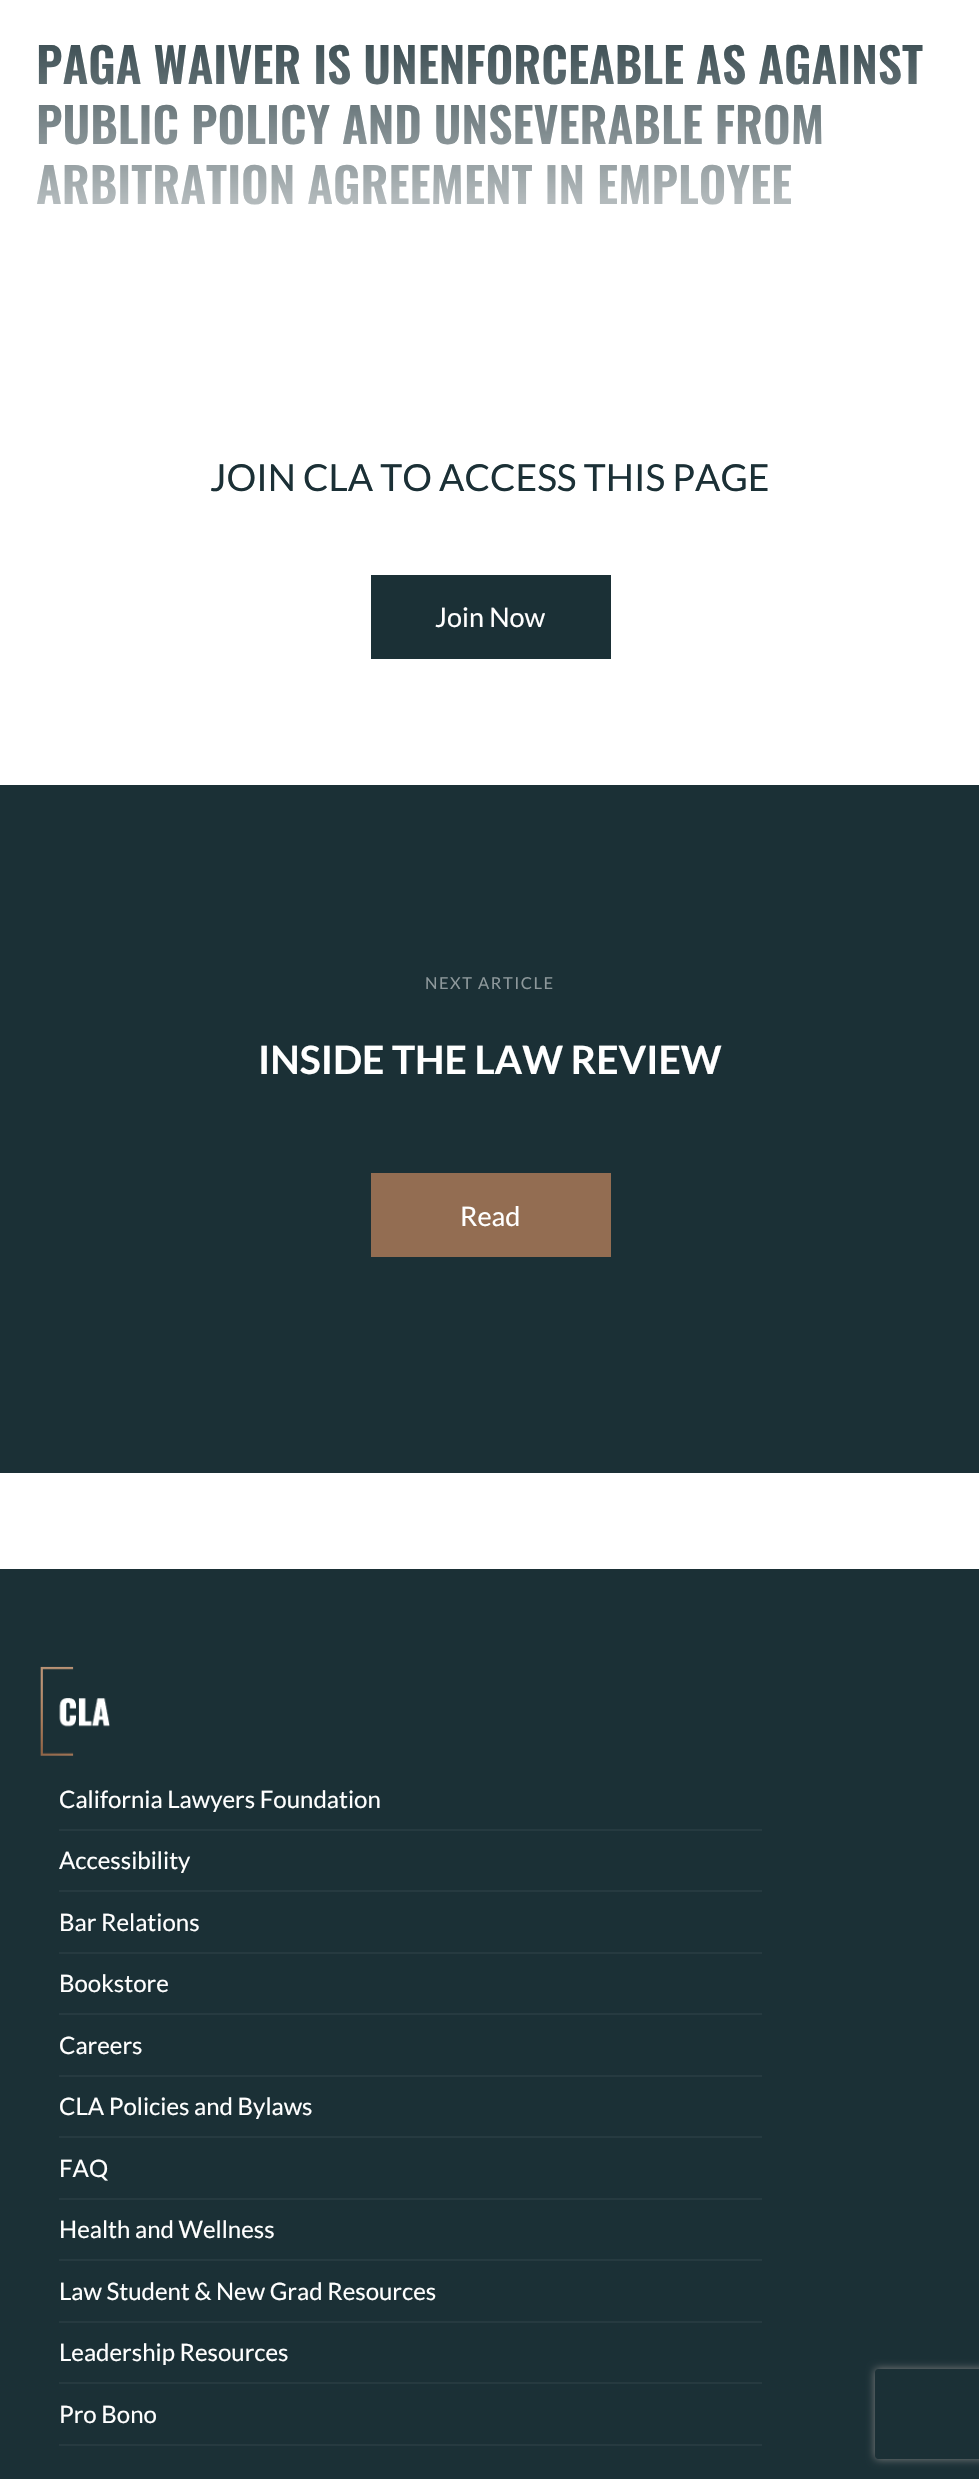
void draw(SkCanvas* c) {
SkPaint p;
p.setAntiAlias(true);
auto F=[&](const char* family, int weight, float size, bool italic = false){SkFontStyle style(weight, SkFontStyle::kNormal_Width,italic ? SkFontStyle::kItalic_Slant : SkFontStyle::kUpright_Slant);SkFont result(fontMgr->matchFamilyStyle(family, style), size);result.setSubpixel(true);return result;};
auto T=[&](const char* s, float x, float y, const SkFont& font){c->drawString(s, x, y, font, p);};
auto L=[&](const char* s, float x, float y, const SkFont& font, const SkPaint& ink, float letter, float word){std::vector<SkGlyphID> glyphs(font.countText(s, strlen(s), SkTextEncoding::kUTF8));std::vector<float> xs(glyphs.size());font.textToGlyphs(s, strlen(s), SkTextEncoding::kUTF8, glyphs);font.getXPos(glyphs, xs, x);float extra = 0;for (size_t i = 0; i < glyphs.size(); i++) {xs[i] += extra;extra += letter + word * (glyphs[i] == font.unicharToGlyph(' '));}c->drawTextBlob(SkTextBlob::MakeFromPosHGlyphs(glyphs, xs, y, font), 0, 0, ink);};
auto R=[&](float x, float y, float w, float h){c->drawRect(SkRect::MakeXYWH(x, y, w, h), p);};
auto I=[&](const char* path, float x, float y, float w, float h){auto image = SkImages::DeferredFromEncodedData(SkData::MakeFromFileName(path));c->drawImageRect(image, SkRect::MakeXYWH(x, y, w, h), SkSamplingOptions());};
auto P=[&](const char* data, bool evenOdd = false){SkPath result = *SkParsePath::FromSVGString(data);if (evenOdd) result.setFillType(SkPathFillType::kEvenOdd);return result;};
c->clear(0xffffffff);
auto f1 = F("Oswald",600,48);
p.setColor(0xff1b3036);
T("PAGA WAIVER IS UNENFORCEABLE AS AGAINST",36,84,f1);
T("PUBLIC POLICY AND UNSEVERABLE FROM",36,144,f1);
T("ARBITRATION AGREEMENT IN EMPLOYEE",36,204,f1);
{
const SkColor colors[] = {0x00ffffff,0xffffffff};
const float stops[] = {0,.8};
const SkPoint ends[] = {{490,-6}, {490,384}};
p.setShader(SkGradientShader::MakeLinear(ends, colors, stops, 2, SkTileMode::kClamp));
p.setAlpha(255);
}
R(37,44,886,161);
auto f2 = F("Lato",400,37.25);
p.setShader(nullptr);
p.setColor(0xff1b3036);
T("JOIN CLA TO ACCESS THIS PAGE",210,491,f2);
R(371,575,240,84);
auto f3 = F("Lato",400,27);
p.setColor(0xffffffff);
T("Join Now",435,627,f3);
p.setColor(0xff1b3036);
R(0,785,979,688);
auto f4 = F("Lato",400,16.5);
p.setColor(0xff8d989b);
L("NEXT ARTICLE",425,989,f4,p,1.5,0);
auto f5 = F("Lato",700,39);
p.setColor(0xffffffff);
T("INSIDE THE LAW REVIEW",258,1074,f5);
p.setColor(0xff936d52);
R(371,1173,240,84);
p.setColor(0xffffffff);
T("Read",460,1226,f3);
p.setColor(0xff1b3036);
R(0,1569,979,910);
I("1.png",40,1666,70,90);
p.setColor(0xff263a40);
R(59,1829,703,2);
auto f6 = F("Lato",400,24);
p.setColor(0xffffffff);
T("California Lawyers Foundation",59,1808,f6);
p.setColor(0xff263a40);
R(59,1890,703,2);
p.setColor(0xffffffff);
T("Accessibility",59,1869,f6);
p.setColor(0xff263a40);
R(59,1952,703,2);
p.setColor(0xffffffff);
T("Bar Relations",59,1931,f6);
p.setColor(0xff263a40);
R(59,2013,703,2);
p.setColor(0xffffffff);
T("Bookstore",59,1992,f6);
p.setColor(0xff263a40);
R(59,2075,703,2);
p.setColor(0xffffffff);
T("Careers",59,2054,f6);
p.setColor(0xff263a40);
R(59,2136,703,2);
p.setColor(0xffffffff);
T("CLA Policies and Bylaws",59,2115,f6);
p.setColor(0xff263a40);
R(59,2198,703,2);
p.setColor(0xffffffff);
T("FAQ",59,2177,f6);
p.setColor(0xff263a40);
R(59,2259,703,2);
p.setColor(0xffffffff);
T("Health and Wellness",59,2238,f6);
p.setColor(0xff263a40);
R(59,2321,703,2);
p.setColor(0xffffffff);
T("Law Student & New Grad Resources",59,2300,f6);
p.setColor(0xff263a40);
R(59,2382,703,2);
p.setColor(0xffffffff);
T("Leadership Resources",59,2361,f6);
p.setColor(0xff263a40);
R(59,2444,703,2);
p.setColor(0xffffffff);
T("Pro Bono",59,2423,f6);
c->save();
c->clipPath(P("M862 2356h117v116h-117zm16 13h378c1.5 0 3 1.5 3 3v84c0 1.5-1.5 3-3 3h-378c-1.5 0-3-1.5-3-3v-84c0-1.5 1.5-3 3-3z",true),true);
p.setColor(0xff808080);
p.setMaskFilter(SkMaskFilter::MakeBlur(kNormal_SkBlurStyle, 4));
c->drawRoundRect(SkRect::MakeXYWH(875,2369,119,90),3,3,p);
p.setMaskFilter(nullptr);
c->restore();
}
